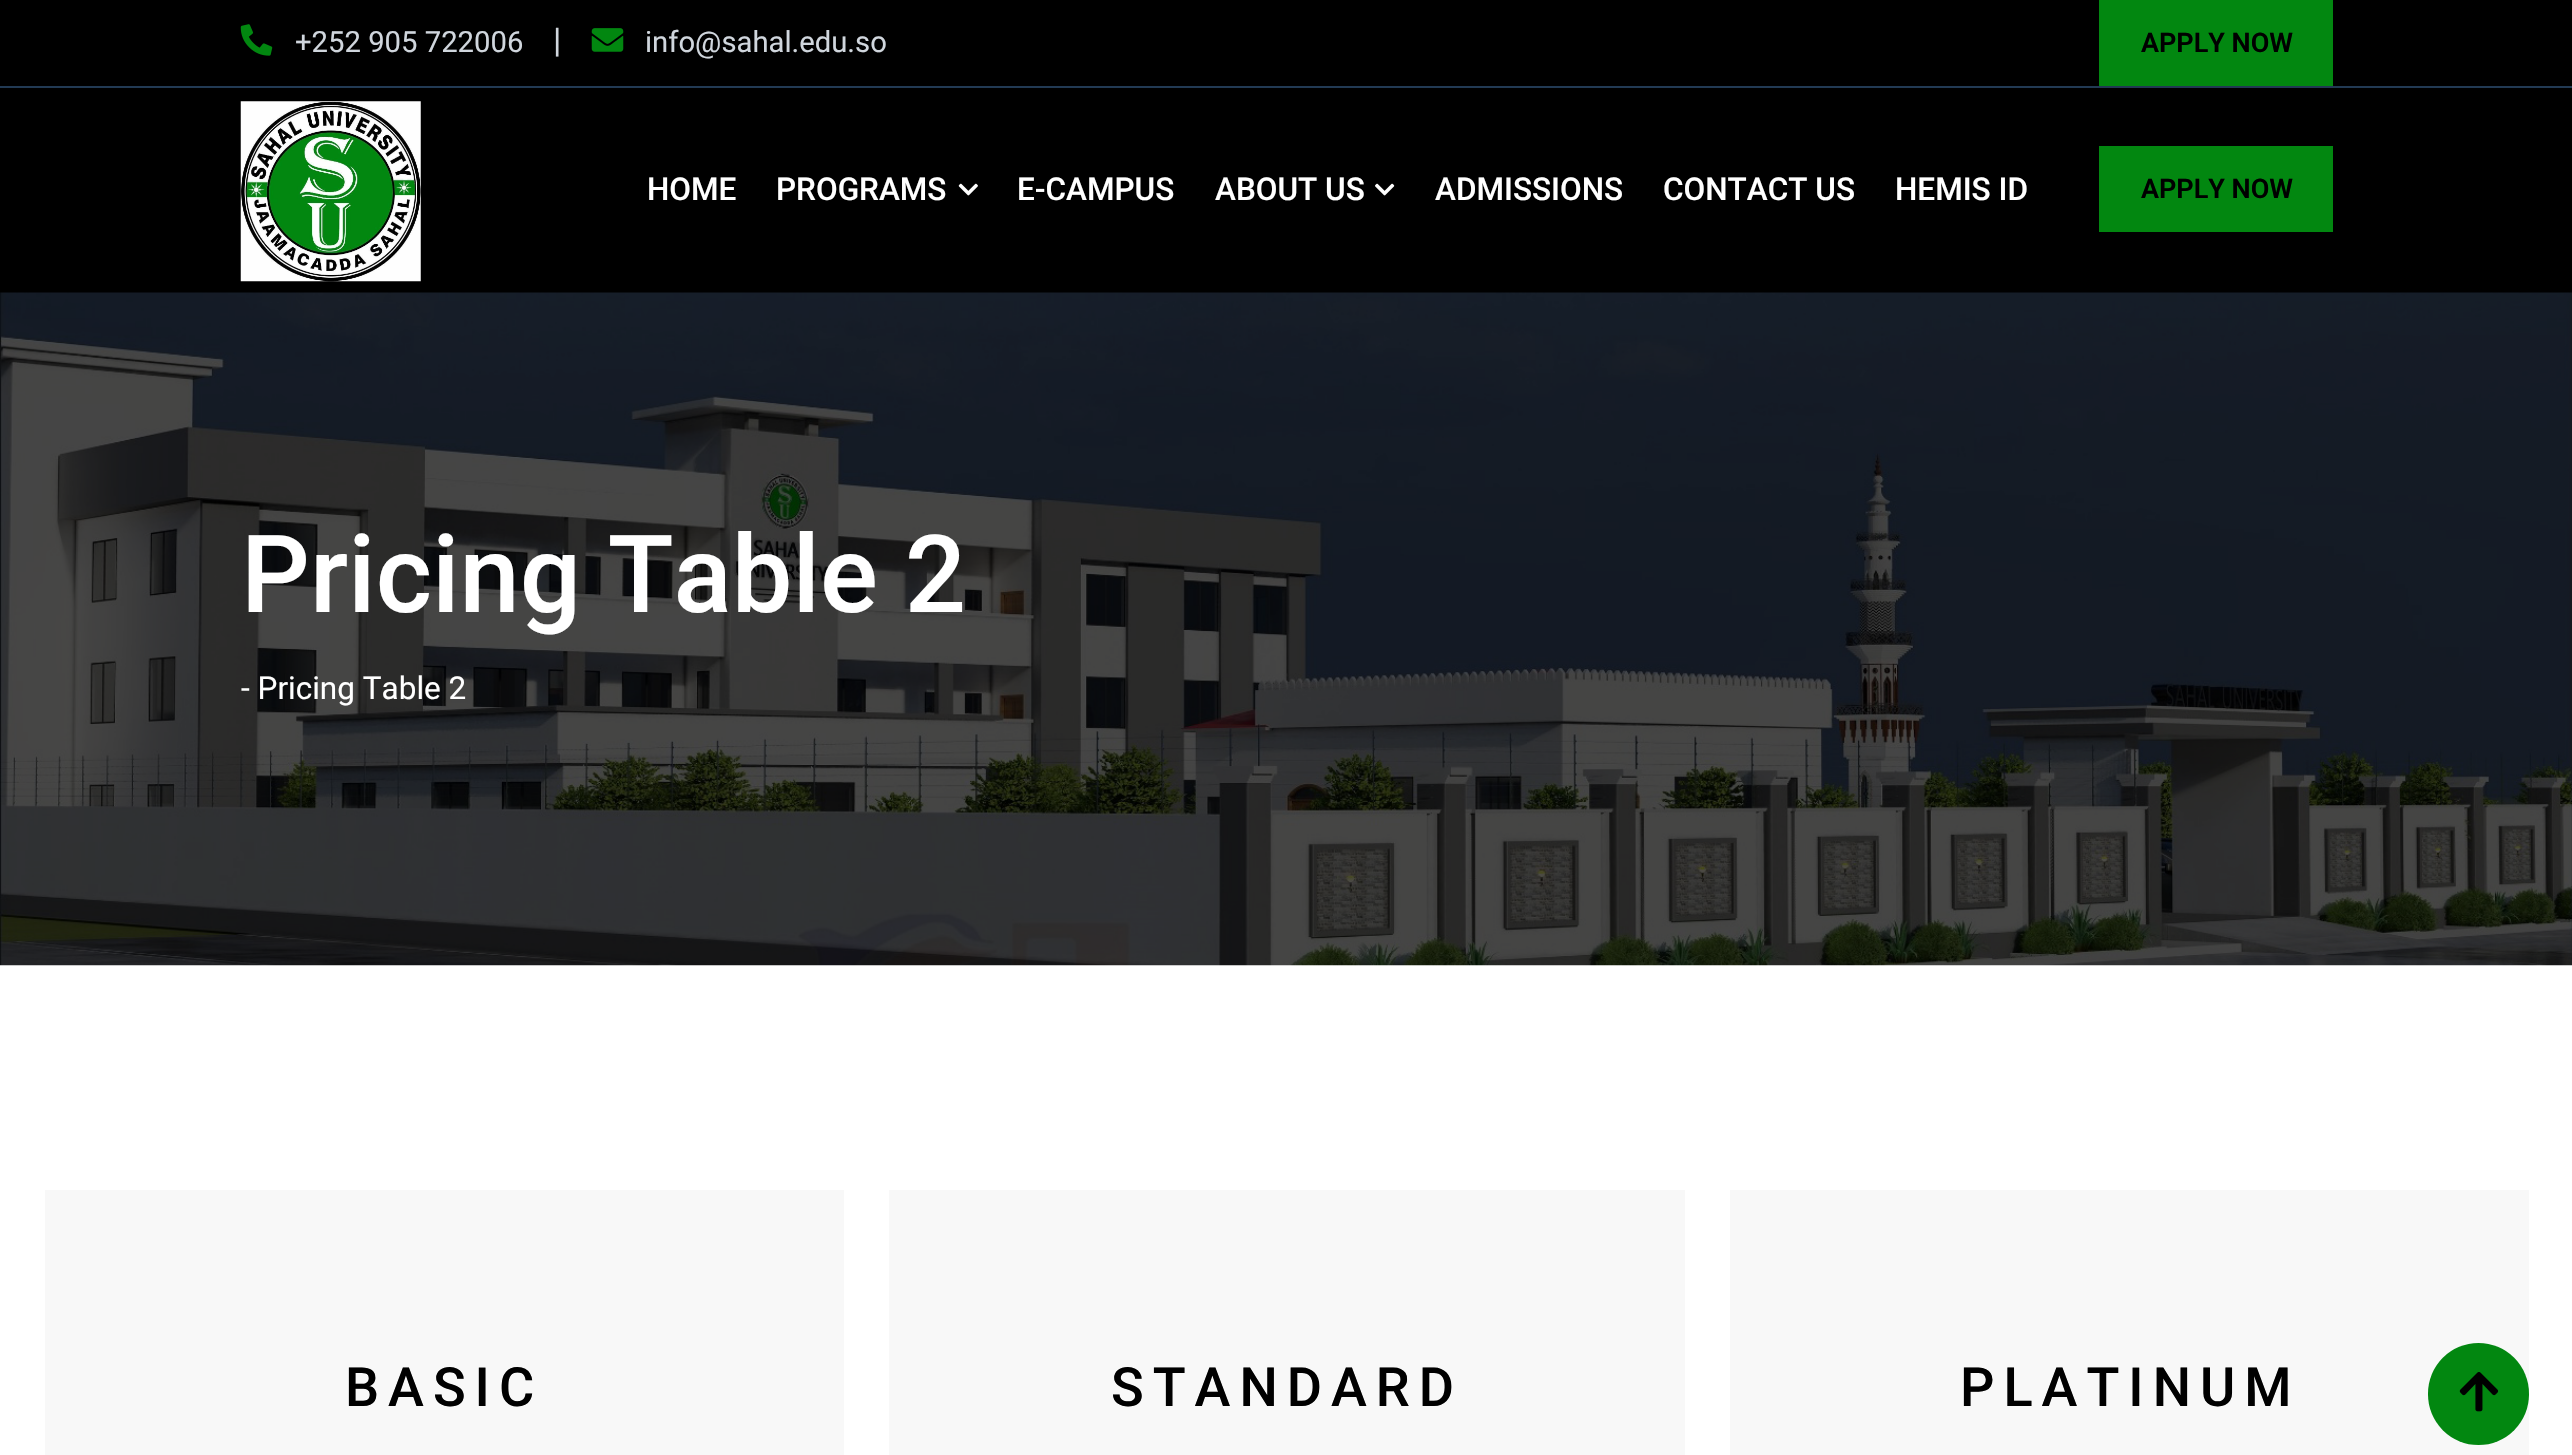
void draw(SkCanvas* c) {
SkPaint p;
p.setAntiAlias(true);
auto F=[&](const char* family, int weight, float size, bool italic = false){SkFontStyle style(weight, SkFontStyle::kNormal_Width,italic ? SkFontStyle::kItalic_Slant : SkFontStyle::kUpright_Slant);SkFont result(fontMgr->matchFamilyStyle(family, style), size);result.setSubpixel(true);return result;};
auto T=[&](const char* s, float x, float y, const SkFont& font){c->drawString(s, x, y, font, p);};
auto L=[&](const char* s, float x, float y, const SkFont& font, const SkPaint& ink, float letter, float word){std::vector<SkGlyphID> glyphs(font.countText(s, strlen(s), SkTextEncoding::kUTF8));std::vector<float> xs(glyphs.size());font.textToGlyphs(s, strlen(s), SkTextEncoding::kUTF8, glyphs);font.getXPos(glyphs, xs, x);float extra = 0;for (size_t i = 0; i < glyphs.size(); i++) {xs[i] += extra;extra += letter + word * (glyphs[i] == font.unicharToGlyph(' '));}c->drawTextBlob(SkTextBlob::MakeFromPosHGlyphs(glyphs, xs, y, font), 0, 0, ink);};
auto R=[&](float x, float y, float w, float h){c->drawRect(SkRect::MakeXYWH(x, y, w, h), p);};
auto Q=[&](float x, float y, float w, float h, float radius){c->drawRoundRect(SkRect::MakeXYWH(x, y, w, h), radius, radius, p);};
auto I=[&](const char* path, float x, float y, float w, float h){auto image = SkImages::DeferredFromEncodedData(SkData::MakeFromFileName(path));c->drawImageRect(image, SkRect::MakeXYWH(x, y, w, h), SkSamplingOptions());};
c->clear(0xffffffff);
p.setColor(0xff000000);
R(0,0,2572,293);
p.setColor(0xff223a54);
R(0,86,2572,2);
I("1.png",240,24,33,32);
auto f1 = F("Roboto",400,29.25);
p.setColor(0xffd0d6dd);
T("+252 905 722006",295,52,f1);
auto f2 = F("Roboto",400,34);
T("|",553,52,f2);
I("2.png",591,28,33,24);
T("info@sahal.edu.so",645,52,f1);
p.setColor(0xff028710);
R(2099,0,234,86);
auto f3 = F("Roboto",600,27);
p.setColor(0xff000000);
T("APPLY NOW",2141,52,f3);
I("3.png",240,101,181,181);
auto f4 = F("Roboto",500,31.5);
p.setColor(0xffffffff);
T("HOME",647,200,f4);
T("PROGRAMS",776,200,f4);
I("4.png",958,183,20,13);
T("E-CAMPUS",1017,200,f4);
T("ABOUT US",1215,200,f4);
I("5.png",1375,183,20,13);
T("ADMISSIONS",1435,200,f4);
T("CONTACT US",1663,200,f4);
T("HEMIS ID",1895,200,f4);
p.setColor(0xff028710);
R(2099,146,234,86);
p.setColor(0xff000000);
T("APPLY NOW",2141,198,f3);
I("6.png",0,292,2572,674);
auto f5 = F("Roboto",500,108);
p.setColor(0xffffffff);
T("Pricing Table 2",241,612,f5);
auto f6 = F("Roboto",400,31.5);
T("- Pricing Table 2",241,699,f6);
p.setColor(0xfff8f8f8);
R(45,1190,799,265);
auto f7 = F("Roboto",500,54);
p.setColor(0xff000000);
L("BASIC",345,1406,f7,p,9,0);
p.setColor(0xfff8f8f8);
R(889,1190,796,265);
p.setColor(0xff000000);
L("STANDARD",1111,1406,f7,p,9,0);
p.setColor(0xfff8f8f8);
R(1730,1190,799,265);
p.setColor(0xff000000);
L("PLATINUM",1960,1406,f7,p,9,0);
p.setColor(0xff028710);
Q(2428,1343,101,102,50.5);
I("7.png",2459,1372,40,40);
}
